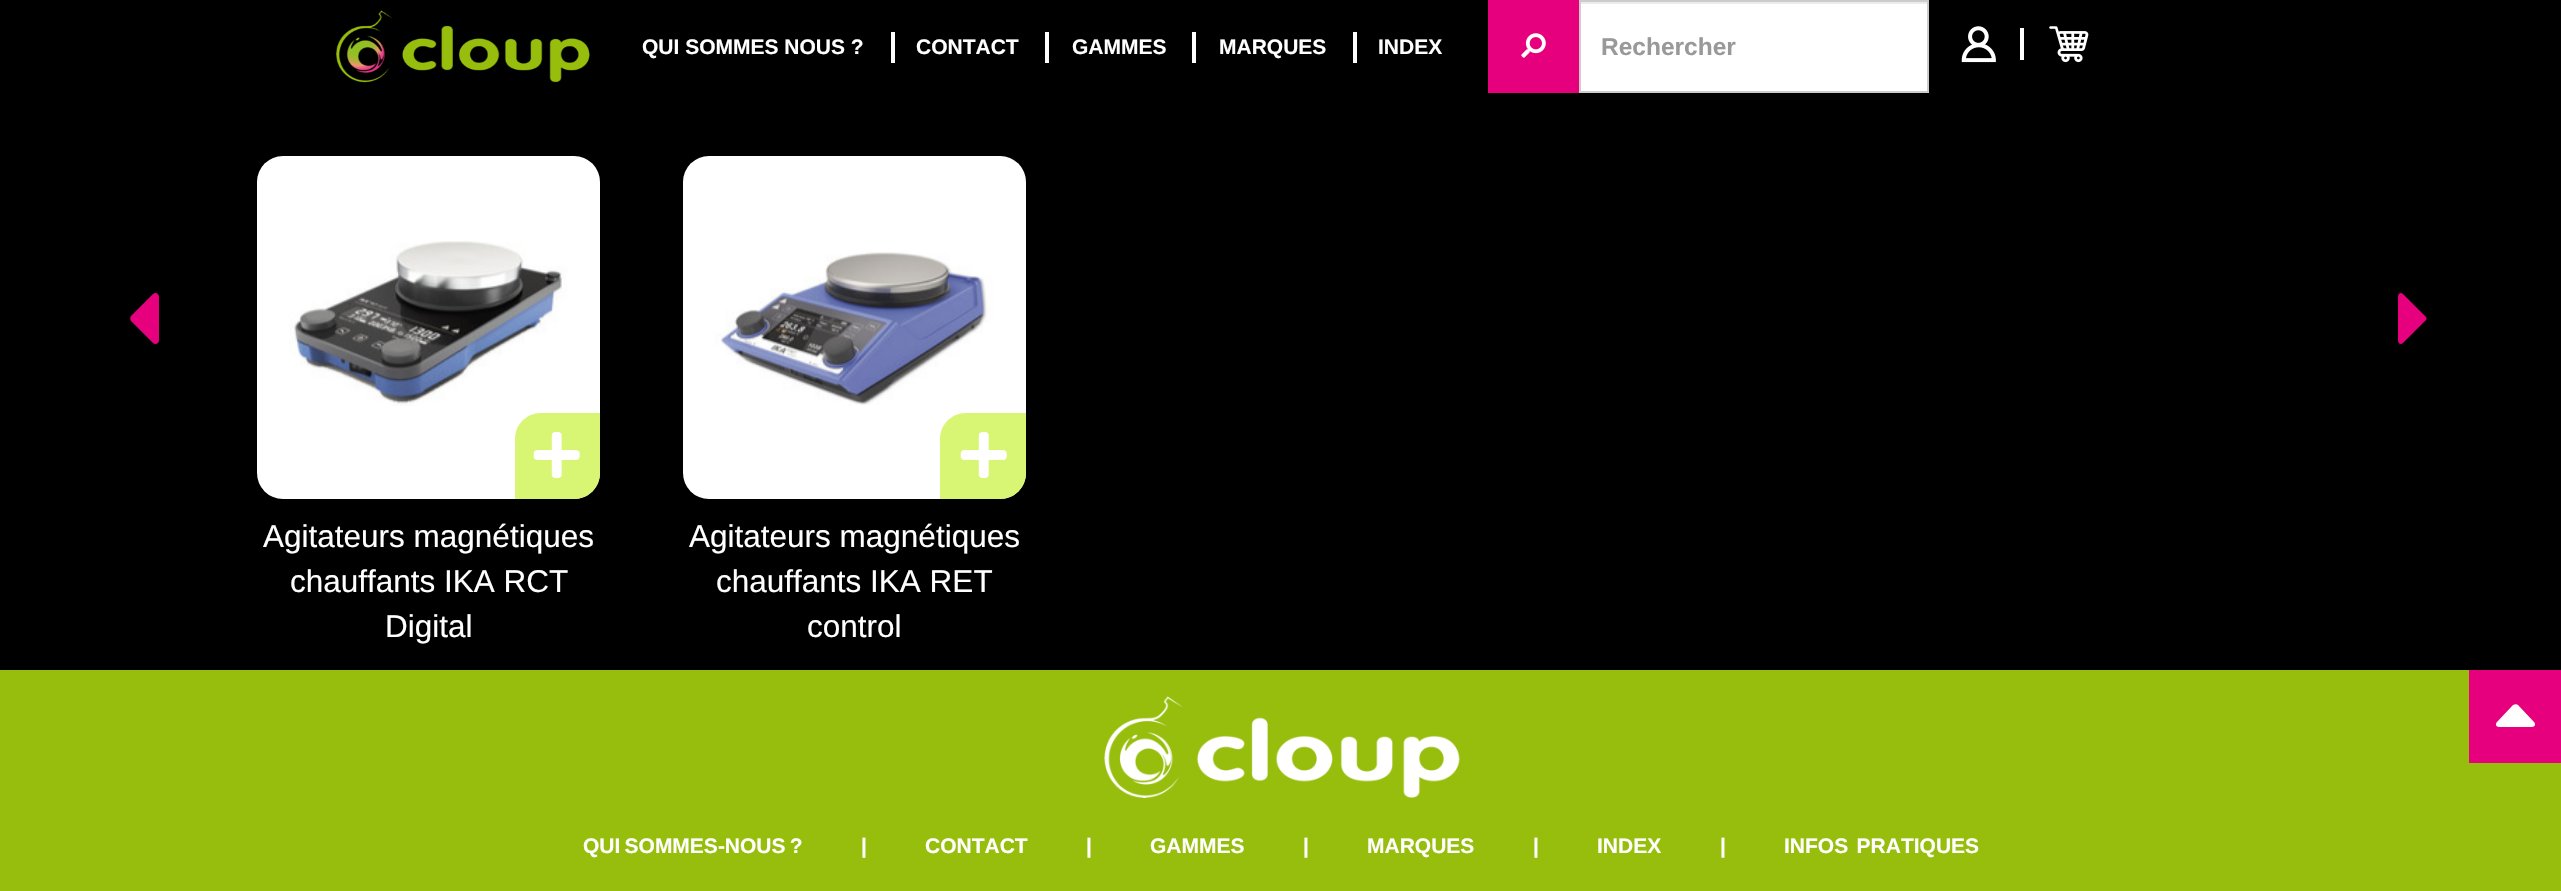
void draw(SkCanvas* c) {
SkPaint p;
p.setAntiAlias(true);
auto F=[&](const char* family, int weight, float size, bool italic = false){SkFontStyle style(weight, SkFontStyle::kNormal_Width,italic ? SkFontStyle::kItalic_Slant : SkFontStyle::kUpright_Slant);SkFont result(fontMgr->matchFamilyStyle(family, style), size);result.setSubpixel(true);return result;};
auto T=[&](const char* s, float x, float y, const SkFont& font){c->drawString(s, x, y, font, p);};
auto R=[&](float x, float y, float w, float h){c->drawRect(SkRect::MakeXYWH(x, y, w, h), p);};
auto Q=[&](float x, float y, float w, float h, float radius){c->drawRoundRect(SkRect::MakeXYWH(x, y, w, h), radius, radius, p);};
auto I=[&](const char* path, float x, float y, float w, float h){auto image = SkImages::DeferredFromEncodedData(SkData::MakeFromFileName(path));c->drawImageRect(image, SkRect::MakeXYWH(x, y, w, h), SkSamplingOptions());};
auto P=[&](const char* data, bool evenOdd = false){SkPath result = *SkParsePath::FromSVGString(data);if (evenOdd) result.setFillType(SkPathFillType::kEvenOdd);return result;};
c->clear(0xff000000);
I("1.png",336,10,254,73);
auto f1 = F("Liberation Sans",700,21);
p.setColor(0xffffffff);
T("QUI SOMMES NOUS ?",642,54,f1);
R(891,32,4,31);
T("CONTACT",916,54,f1);
R(1045,32,4,31);
T("GAMMES",1072,54,f1);
R(1192,32,4,31);
T("MARQUES",1219,54,f1);
R(1353,32,4,31);
T("INDEX",1378,54,f1);
p.setColor(0xffe6007e);
R(1488,0,91,93);
I("2.png",1521,33,25,25);
p.setColor(0xffffffff);
R(1581,4,346,87);
p.setColor(0xffececec);
R(1580,2,347,2);
p.setStroke(true);
p.setStrokeWidth(2);
p.setColor(0xffcccccc);
c->drawRect(SkRect::MakeXYWH(1580,1,348,91),p);
auto f2 = F("Liberation Sans",700,24.5);
p.setStroke(false);
p.setColor(0xff999999);
T("Rechercher",1601,55,f2);
I("3.png",1961,26,35,37);
p.setColor(0xffffffff);
R(2020,28,4,32);
I("4.png",2049,26,40,37);
p.setColor(0xffe6007e);
c->drawPath(P("M159 297v43c0 4-4 5-6 3l-22-22c-1-1-1-4 0-5l22-22c2-2 6-1 6 3z"),p);
c->drawPath(P("M2398 340v-43c0-4 3-5 5-3l22 22c2 1 2 4 0 5l-22 22c-2 2-5 1-5-3z"),p);
p.setColor(0xffffffff);
Q(257,156,343,343,26);
I("5.png",289,241,278,165);
p.setColor(0xffd9f574);
c->drawPath(P("M541 413h59v60c0 14.5-11.5 26-26 26h-59v-60c0-14.5 11.5-26 26-26z"),p);
I("6.png",533,432,47,46);
auto f3 = F("Liberation Sans",400,31.5);
p.setColor(0xffffffff);
T("Agitateurs magnétiques",263,547,f3);
T("chauffants IKA RCT",290,592,f3);
T("Digital",385,637,f3);
Q(683,156,343,343,26);
I("7.png",714,252,280,153);
p.setColor(0xffd9f574);
c->drawPath(P("M966 413h60v60c0 14.5-11.5 26-26 26h-60v-60c0-14.5 11.5-26 26-26z"),p);
I("6.png",960,432,47,46);
p.setColor(0xffffffff);
T("Agitateurs magnétiques",689,547,f3);
T("chauffants IKA RET",716,592,f3);
T("control",807,637,f3);
p.setColor(0xff98be0d);
R(0,670,2561,221);
p.setColor(0xffe6007e);
R(2469,670,92,93);
p.setColor(0xffffffff);
c->drawPath(P("M2532 727h-33c-3 0-4-3-2-5l16-17c2-1 4-1 5 0l16 17c2 2 1 5-2 5z"),p);
I("8.png",1104,696,356,102);
T("QUI SOMMES-NOUS ?",583,853,f1);
T("|",861,853,f1);
T("CONTACT",925,853,f1);
T("|",1086,853,f1);
T("GAMMES",1150,853,f1);
T("|",1303,853,f1);
T("MARQUES",1367,853,f1);
T("|",1533,853,f1);
T("INDEX",1597,853,f1);
T("|",1720,853,f1);
T("INFOS  PRATIQUES",1784,853,f1);
}
